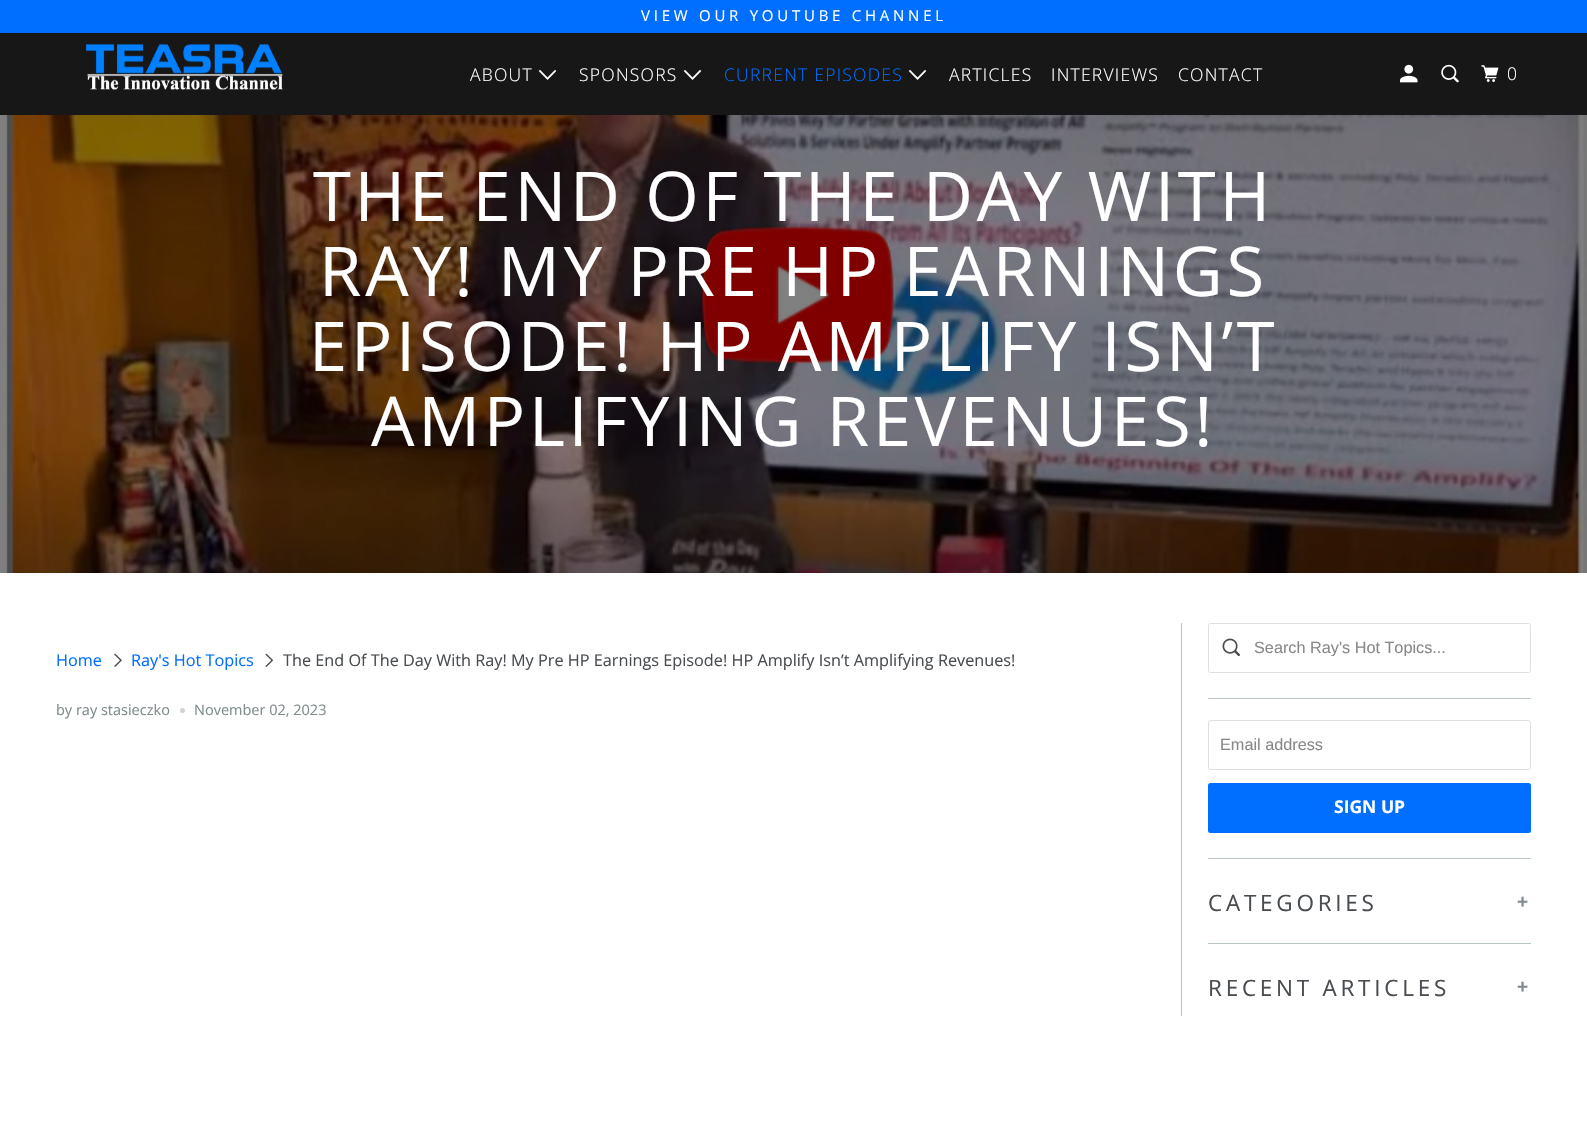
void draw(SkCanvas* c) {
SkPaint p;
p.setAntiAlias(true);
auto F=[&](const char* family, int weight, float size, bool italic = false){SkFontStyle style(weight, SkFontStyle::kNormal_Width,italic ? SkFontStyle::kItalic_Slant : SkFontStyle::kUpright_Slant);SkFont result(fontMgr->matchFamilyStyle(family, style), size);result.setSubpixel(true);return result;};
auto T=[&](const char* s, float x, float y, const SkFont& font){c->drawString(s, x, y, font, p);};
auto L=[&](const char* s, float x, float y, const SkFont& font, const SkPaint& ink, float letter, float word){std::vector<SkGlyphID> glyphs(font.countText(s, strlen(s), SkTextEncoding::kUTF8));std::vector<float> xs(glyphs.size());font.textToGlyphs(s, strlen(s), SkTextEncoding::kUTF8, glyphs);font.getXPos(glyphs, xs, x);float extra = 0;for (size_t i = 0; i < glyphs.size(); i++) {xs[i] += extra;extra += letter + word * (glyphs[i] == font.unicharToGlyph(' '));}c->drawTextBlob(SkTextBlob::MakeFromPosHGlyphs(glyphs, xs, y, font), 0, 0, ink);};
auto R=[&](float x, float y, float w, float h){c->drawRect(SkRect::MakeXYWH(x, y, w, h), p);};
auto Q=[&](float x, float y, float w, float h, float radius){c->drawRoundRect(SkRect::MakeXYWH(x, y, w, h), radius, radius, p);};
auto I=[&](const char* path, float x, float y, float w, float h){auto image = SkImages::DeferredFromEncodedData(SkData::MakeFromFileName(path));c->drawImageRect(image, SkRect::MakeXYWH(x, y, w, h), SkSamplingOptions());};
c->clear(0xffffffff);
p.setColor(0xff006eff);
R(0,0,1587,33);
auto f1 = F("Open Sans",400,15);
p.setColor(0xffffffff);
L("VIEW OUR YOUTUBE CHANNEL",641,21,f1,p,3.75,0);
p.setColor(0xff171717);
R(0,33,1587,82);
I("1.png",85,44,198,46);
auto f2 = F("Open Sans",300,17.5);
p.setColor(0xffffffff);
L("ABOUT",470,81,f2,p,1.25,0);
I("2.png",538,69,19,11);
L("SPONSORS",579,81,f2,p,1.25,0);
I("2.png",683,69,19,11);
p.setColor(0xff006eff);
L("CURRENT EPISODES",724,81,f2,p,1.25,0);
I("2.png",908,69,19,11);
p.setColor(0xffffffff);
L("ARTICLES",949,81,f2,p,1.25,0);
L("INTERVIEWS",1051,81,f2,p,1.25,0);
L("CONTACT",1178,81,f2,p,1.25,0);
I("3.png",1400,64,18,19);
I("4.png",1441,64,18,19);
I("5.png",1481,65,18,17);
L("0",1507,80,f2,p,1.25,0);
I("6.png",0,115,1587,458);
auto f3 = F("Open Sans",400,68.75);
L("THE END OF THE DAY WITH",313,221,f3,p,3.75,0);
L("RAY! MY PRE HP EARNINGS",319,296,f3,p,3.75,0);
L("EPISODE! HP AMPLIFY ISN’T",309,371,f3,p,3.75,0);
L("AMPLIFYING REVENUES!",371,446,f3,p,3.75,0);
auto f4 = F("Open Sans",400,16.25);
p.setColor(0xff006eff);
T("Home",56,666,f4);
I("7.png",114,653,8,14);
T("Ray's Hot Topics",131,666,f4);
I("8.png",265,653,9,14);
p.setColor(0xff494c50);
T("The End Of The Day With Ray! My Pre HP Earnings Episode! HP Amplify Isn’t Amplifying Revenues!",283,666,f4);
auto f5 = F("Open Sans",400,14.5);
p.setColor(0xff7f8c8d);
T("by ray stasieczko",56,715,f5);
p.setColor(0xffced3d3);
c->drawCircle(182.5,710.5,2.5,p);
p.setColor(0xff7f8c8d);
T("November 02, 2023",194,715,f5);
p.setColor(0xffb8c6c6);
R(1181,623,1,393);
R(1208,698,323,1);
p.setStroke(true);
p.setStrokeWidth(1);
p.setColor(0xffdfdfdf);
c->drawRoundRect(SkRect::MakeXYWH(1208.5,623.5,322,49),2,2,p);
I("9.png",1222,638,18,19);
c->save();
c->clipRect(SkRect::MakeXYWH(1254,638,265,18));
auto f6 = F("Liberation Sans",400,16.25);
p.setStroke(false);
p.setColor(0xff888888);
T("Search Ray's Hot Topics...",1254,653,f6);
c->restore();
p.setColor(0xffb8c6c6);
R(1208,858,323,1);
p.setStroke(true);
p.setColor(0xffdfdfdf);
c->drawRoundRect(SkRect::MakeXYWH(1208.5,720.5,322,49),2,2,p);
p.setStroke(false);
p.setColor(0xff888888);
T("Email address",1220,750,f6);
p.setColor(0xff006eff);
Q(1208,783,323,50,2.5);
auto f7 = F("Open Sans",700,17.5);
p.setColor(0xffffffff);
T("SIGN UP",1334,813,f7);
p.setColor(0xffb8c6c6);
R(1208,943,323,1);
auto f8 = F("Open Sans",400,22.5);
p.setColor(0xff494c50);
L("CATEGORIES",1208,911,f8,p,3.75,0);
auto f9 = F("Liberation Sans",700,19);
p.setColor(0xff7f8c8d);
L("+",1517,908,f9,p,3.75,0);
p.setColor(0xff494c50);
L("RECENT ARTICLES",1208,996,f8,p,3.75,0);
p.setColor(0xff7f8c8d);
L("+",1517,993,f9,p,3.75,0);
}
